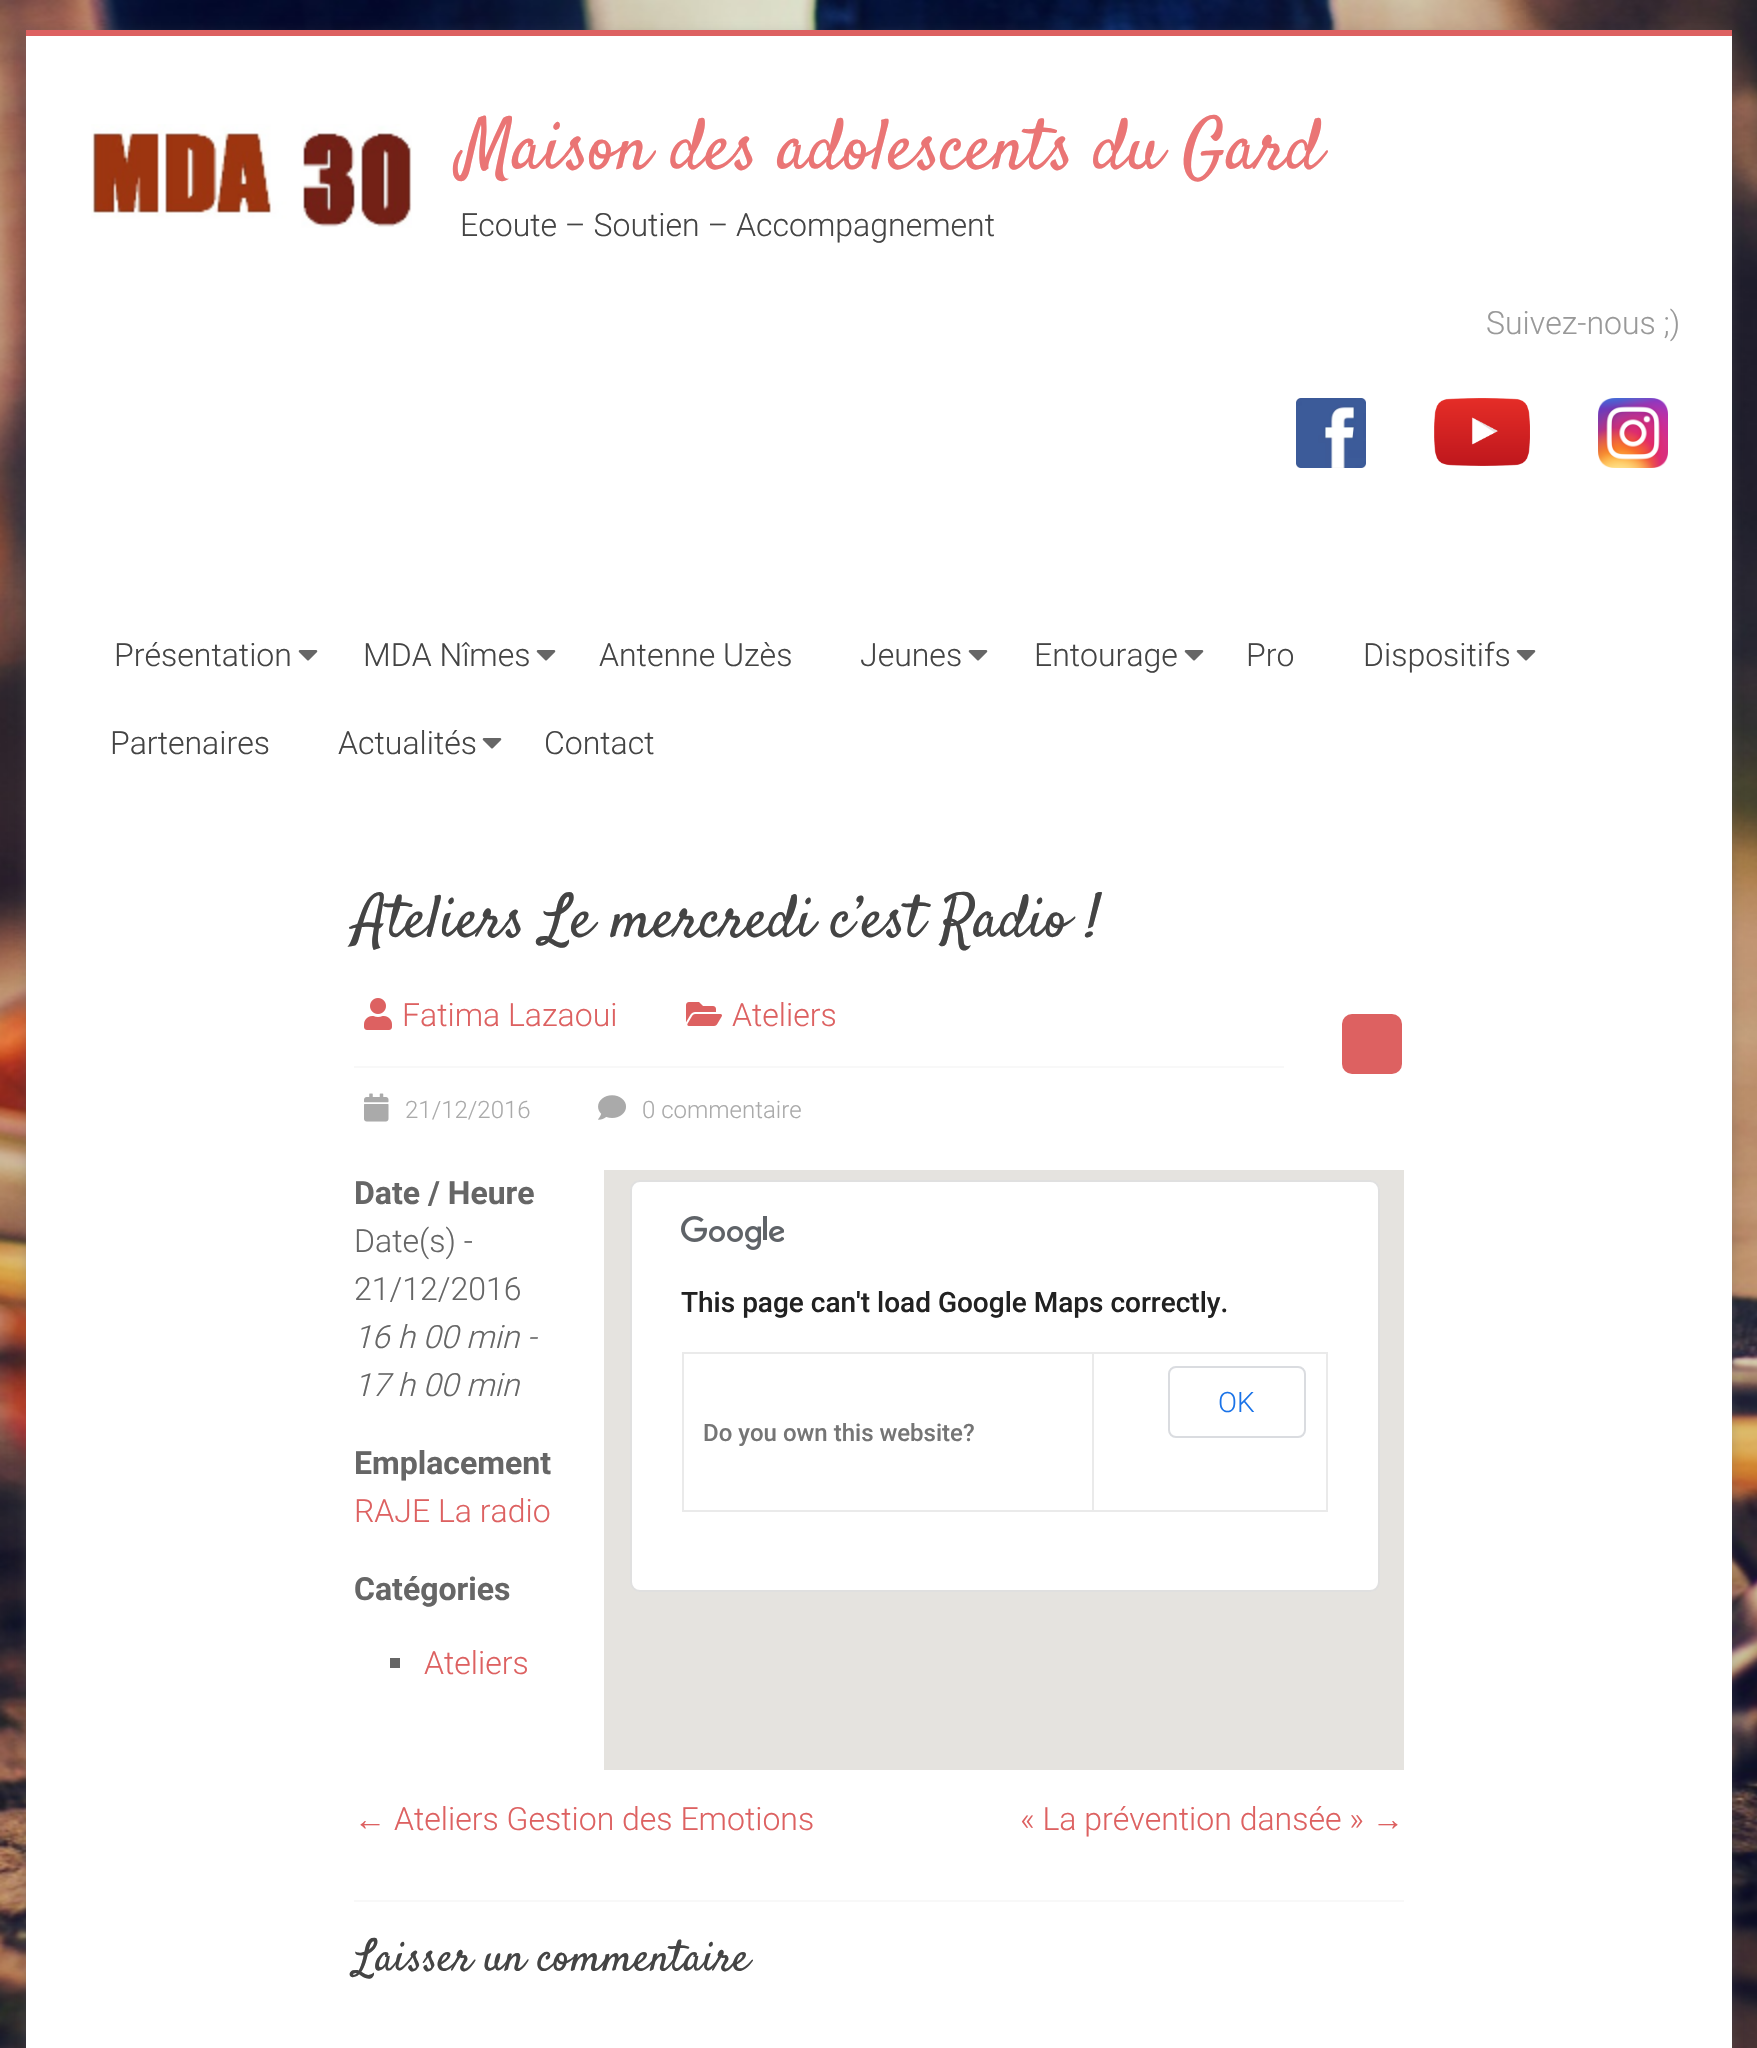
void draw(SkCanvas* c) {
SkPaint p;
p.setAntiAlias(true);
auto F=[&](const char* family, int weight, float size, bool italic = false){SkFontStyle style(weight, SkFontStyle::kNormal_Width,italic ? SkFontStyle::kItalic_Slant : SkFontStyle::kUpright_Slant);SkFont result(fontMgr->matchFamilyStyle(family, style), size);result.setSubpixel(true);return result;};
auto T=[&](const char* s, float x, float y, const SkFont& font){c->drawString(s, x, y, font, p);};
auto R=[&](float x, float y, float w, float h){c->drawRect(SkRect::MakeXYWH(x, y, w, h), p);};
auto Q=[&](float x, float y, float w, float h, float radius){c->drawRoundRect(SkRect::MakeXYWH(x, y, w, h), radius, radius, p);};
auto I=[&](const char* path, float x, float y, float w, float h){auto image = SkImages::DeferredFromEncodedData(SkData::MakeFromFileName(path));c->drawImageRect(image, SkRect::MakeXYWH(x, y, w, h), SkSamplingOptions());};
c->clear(0xffffffff);
I("1.png",0,0,1757,2048);
p.setColor(0x4d646464);
p.setMaskFilter(SkMaskFilter::MakeBlur(kNormal_SkBlurStyle, 6));
c->drawRect(SkRect::MakeXYWH(26,34,1706,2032),p);
p.setMaskFilter(nullptr);
p.setColor(0xffffffff);
R(26,36,1706,2012);
p.setColor(0xffdd6161);
R(26,30,1706,6);
I("2.png",91,124,321,104);
auto f1 = F("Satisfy",400,72);
p.setColor(0xffea7575);
T("Maison des adolescents du Gard",460,168,f1);
auto f2 = F("Roboto",300,32);
p.setColor(0xff444444);
T("Ecoute – Soutien – Accompagnement",460,236,f2);
p.setColor(0xff999999);
T("Suivez-nous ;)",1486,334,f2);
I("3.png",1296,398,70,70);
I("4.png",1434,398,96,68);
I("5.png",1598,398,70,70);
p.setColor(0xff444444);
T("Présentation",114,666,f2);
I("6.png",298,650,20,11);
T("MDA Nîmes",363,666,f2);
I("6.png",536,650,20,11);
T("Antenne Uzès",599,666,f2);
T("Jeunes",860,666,f2);
I("6.png",968,650,20,11);
T("Entourage",1034,666,f2);
I("6.png",1184,650,20,11);
T("Pro",1246,666,f2);
T("Dispositifs",1363,666,f2);
I("6.png",1516,650,20,11);
T("Partenaires",110,754,f2);
T("Actualités",338,754,f2);
I("6.png",482,738,20,11);
T("Contact",544,754,f2);
auto f3 = F("Satisfy",400,60);
T("Ateliers Le mercredi c’est Radio !",354,936,f3);
I("7.png",364,998,28,32);
p.setColor(0xffdd6161);
T("Fatima Lazaoui",402,1026,f2);
I("8.png",686,1002,36,24);
T("Ateliers",732,1026,f2);
p.setColor(0xfff8f8f8);
R(354,1066,930,2);
p.setColor(0xffdd6161);
Q(1342,1014,60,60,10);
I("9.png",364,1093,25,29);
auto f4 = F("Roboto",300,24);
p.setColor(0xffaaaaaa);
T("21/12/2016",405,1118,f4);
I("10.png",598,1095,28,25);
T("0 commentaire",642,1118,f4);
auto f5 = F("Roboto",700,32);
p.setColor(0xff666666);
T("Date / Heure",354,1204,f5);
T("Date(s) -",354,1252,f2);
T("21/12/2016",354,1300,f2);
auto f6 = F("Roboto",300,32,true);
T("16 h 00 min -",354,1348,f6);
T("17 h 00 min",354,1396,f6);
p.setColor(0xffe5e3df);
R(604,1170,800,600);
p.setColor(0xffffffff);
Q(630,1180,750,412,10);
p.setStroke(true);
p.setStrokeWidth(2);
p.setColor(0x1f000000);
c->drawRoundRect(SkRect::MakeXYWH(631,1181,748,410),9,9,p);
I("11.png",681,1216,103,34);
auto f7 = F("Roboto",500,28);
p.setStroke(false);
p.setColor(0xff212121);
T("This page can't load Google Maps correctly.",681,1312,f7);
p.setColor(0xffeaeaea);
R(1092,1352,236,2);
R(1326,1352,2,160);
R(1092,1510,236,2);
R(1092,1352,2,160);
p.setStroke(true);
p.setColor(0xffdadce0);
c->drawRoundRect(SkRect::MakeXYWH(1169,1367,136,70),7,7,p);
auto f8 = F("Roboto",300,28);
p.setStroke(false);
p.setColor(0xff1a73e8);
T("OK",1218,1412,f8);
p.setColor(0xffeaeaea);
R(682,1352,412,2);
R(682,1510,412,2);
R(682,1352,2,160);
auto f9 = F("Roboto",500,24);
p.setColor(0xff757575);
T("Do you own this website?",703,1441,f9);
p.setColor(0xff666666);
T("Emplacement",354,1474,f5);
p.setColor(0xffdd6161);
T("RAJE La radio",354,1522,f2);
p.setColor(0xff666666);
T("Catégories",354,1600,f5);
R(390,1658,10,10);
p.setColor(0xffdd6161);
T("Ateliers",424,1674,f2);
auto f10 = F("Liberation Sans",400,32);
T("←",354,1830,f10);
T("Ateliers Gestion des Emotions",394,1830,f2);
T("« La prévention dansée »",1020,1830,f2);
T("→",1372,1830,f10);
p.setColor(0xfff8f8f8);
R(354,1900,1050,2);
auto f11 = F("Satisfy",400,44);
p.setColor(0xff444444);
T("Laisser un commentaire",354,1970,f11);
}
